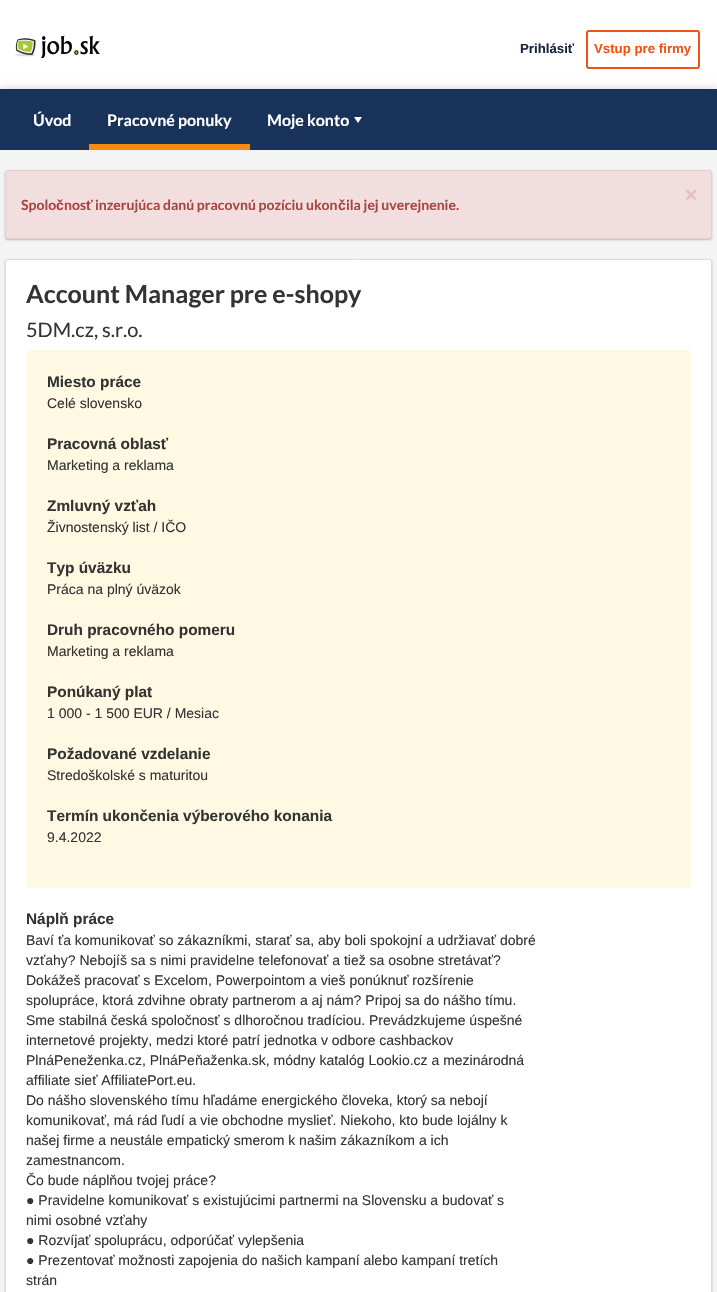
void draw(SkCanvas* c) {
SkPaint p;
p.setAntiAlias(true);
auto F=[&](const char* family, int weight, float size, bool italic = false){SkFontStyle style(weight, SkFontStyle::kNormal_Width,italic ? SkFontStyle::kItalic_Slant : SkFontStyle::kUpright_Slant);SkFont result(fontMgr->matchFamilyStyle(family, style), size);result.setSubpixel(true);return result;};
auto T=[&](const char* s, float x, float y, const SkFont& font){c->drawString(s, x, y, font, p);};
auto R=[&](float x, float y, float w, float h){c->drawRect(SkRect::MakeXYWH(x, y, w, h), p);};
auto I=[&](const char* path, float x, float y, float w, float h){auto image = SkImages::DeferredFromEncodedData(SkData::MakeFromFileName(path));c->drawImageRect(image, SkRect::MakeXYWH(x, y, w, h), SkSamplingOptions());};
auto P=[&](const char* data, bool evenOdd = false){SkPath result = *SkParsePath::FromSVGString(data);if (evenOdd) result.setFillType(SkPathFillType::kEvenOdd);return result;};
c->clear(0xffffffff);
I("1.png",15,35,85,23);
auto f1 = F("Liberation Sans",700,13.25);
p.setColor(0xff182642);
T("Prihlásiť",520,53,f1);
p.setStroke(true);
p.setStrokeWidth(2);
p.setColor(0xffee5315);
c->drawRoundRect(SkRect::MakeXYWH(587,31,112,37),2,2,p);
p.setStroke(false);
T("Vstup pre firmy",594,53,f1);
p.setColor(0x3b000000);
p.setMaskFilter(SkMaskFilter::MakeBlur(kNormal_SkBlurStyle, 5));
c->drawRect(SkRect::MakeXYWH(0,90,717,61),p);
p.setMaskFilter(nullptr);
p.setColor(0xff19325a);
R(0,89,717,61);
auto f2 = F("Lato",700,16);
p.setColor(0xffffffff);
T("Úvod",33,126,f2);
p.setColor(0xfffd8a10);
R(89,144,161,6);
p.setColor(0xffffffff);
T("Pracovné ponuky",107,126,f2);
T("Moje konto",267,126,f2);
c->drawPath(P("M358 123l-4-6h8z"),p);
p.setColor(0xfff4f4f4);
R(0,150,717,1142);
p.setColor(0x40000000);
p.setMaskFilter(SkMaskFilter::MakeBlur(kNormal_SkBlurStyle, 1));
c->drawRoundRect(SkRect::MakeXYWH(5,171,707,69),3,3,p);
p.setMaskFilter(nullptr);
p.setColor(0xfff2dede);
c->drawRoundRect(SkRect::MakeXYWH(5.5,170.5,706,68),2.5,2.5,p);
p.setStroke(true);
p.setStrokeWidth(1);
p.setColor(0xffebccd1);
c->drawRoundRect(SkRect::MakeXYWH(5.5,170.5,706,68),2.5,2.5,p);
auto f3 = F("Liberation Sans",700,21);
p.setStroke(false);
p.setColor(0xffe3bfbf);
T("×",685,202,f3);
auto f4 = F("Lato",700,14);
p.setColor(0xffa94442);
T("Spolo",21,210,f4);
auto f5 = F("Liberation Sans",700,14);
T("č",56,210,f5);
T("nos",64,210,f4);
T("ť",86,210,f5);
T("inzerujúca danú pracovnú pozíciu ukon",95,210,f4);
T("č",338,210,f5);
T("ila jej uverejnenie.",346,210,f4);
p.setColor(0x40000000);
p.setMaskFilter(SkMaskFilter::MakeBlur(kNormal_SkBlurStyle, 1));
c->drawRoundRect(SkRect::MakeXYWH(5,260,707,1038),3,3,p);
p.setMaskFilter(nullptr);
p.setColor(0xffffffff);
c->drawRoundRect(SkRect::MakeXYWH(5.5,259.5,706,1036),2.5,2.5,p);
p.setStroke(true);
p.setColor(0xffdddddd);
c->drawRoundRect(SkRect::MakeXYWH(5.5,259.5,706,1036),2.5,2.5,p);
auto f6 = F("Lato",700,25);
p.setStroke(false);
p.setColor(0xff333333);
T("Account Manager pre e-shopy",26,303,f6);
auto f7 = F("Lato",400,20);
T("5DM.cz, s.r.o.",26,337,f7);
p.setColor(0xfffff8e2);
c->drawRoundRect(SkRect::MakeXYWH(26.5,350.5,664,537),3.5,3.5,p);
p.setStroke(true);
c->drawRoundRect(SkRect::MakeXYWH(26.5,350.5,664,537),3.5,3.5,p);
auto f8 = F("Liberation Sans",700,15.4);
p.setStroke(false);
p.setColor(0xff333333);
T("Miesto práce",47,387,f8);
auto f9 = F("Liberation Sans",400,14);
T("Celé slovensko",47,408,f9);
T("Pracovná oblasť",47,449,f8);
T("Marketing a reklama",47,470,f9);
T("Zmluvný vzťah",47,511,f8);
T("Živnostenský list / IČO",47,532,f9);
T("Typ úväzku",47,573,f8);
T("Práca na plný úväzok",47,594,f9);
T("Druh pracovného pomeru",47,635,f8);
T("Marketing a reklama",47,656,f9);
T("Ponúkaný plat",47,697,f8);
T("1 000 - 1 500 EUR / Mesiac",47,718,f9);
T("Požadované vzdelanie",47,759,f8);
T("Stredoškolské s maturitou",47,780,f9);
T("Termín ukončenia výberového konania",47,821,f8);
T("9.4.2022",47,842,f9);
T("Náplň práce",26,924,f8);
T("Baví ťa komunikovať so zákazníkmi, starať sa, aby boli spokojní a udržiavať dobré",26,945,f9);
T("vzťahy? Nebojíš sa s nimi pravidelne telefonovať a tiež sa osobne stretávať?",26,965,f9);
T("Dokážeš pracovať s Excelom, Powerpointom a vieš ponúknuť rozšírenie",26,985,f9);
T("spolupráce, ktorá zdvihne obraty partnerom a aj nám? Pripoj sa do nášho tímu.",26,1005,f9);
T("Sme stabilná česká spoločnosť s dlhoročnou tradíciou. Prevádzkujeme úspešné",26,1025,f9);
T("internetové projekty, medzi ktoré patrí jednotka v odbore cashbackov",26,1045,f9);
T("PlnáPeneženka.cz, PlnáPeňaženka.sk, módny katalóg Lookio.cz a mezinárodná",26,1065,f9);
T("affiliate sieť AffiliatePort.eu.",26,1085,f9);
T("Do nášho slovenského tímu hľadáme energického človeka, ktorý sa nebojí",26,1105,f9);
T("komunikovať, má rád ľudí a vie obchodne myslieť. Niekoho, kto bude lojálny k",26,1125,f9);
T("našej firme a neustále empatický smerom k našim zákazníkom a ich",26,1145,f9);
T("zamestnancom.",26,1165,f9);
T("Čo bude náplňou tvojej práce?",26,1185,f9);
T("● Pravidelne komunikovať s existujúcimi partnermi na Slovensku a budovať s",26,1205,f9);
T("nimi osobné vzťahy",26,1225,f9);
T("● Rozvíjať spoluprácu, odporúčať vylepšenia",26,1245,f9);
T("● Prezentovať možnosti zapojenia do našich kampaní alebo kampaní tretích",26,1265,f9);
T("strán",26,1285,f9);
}
